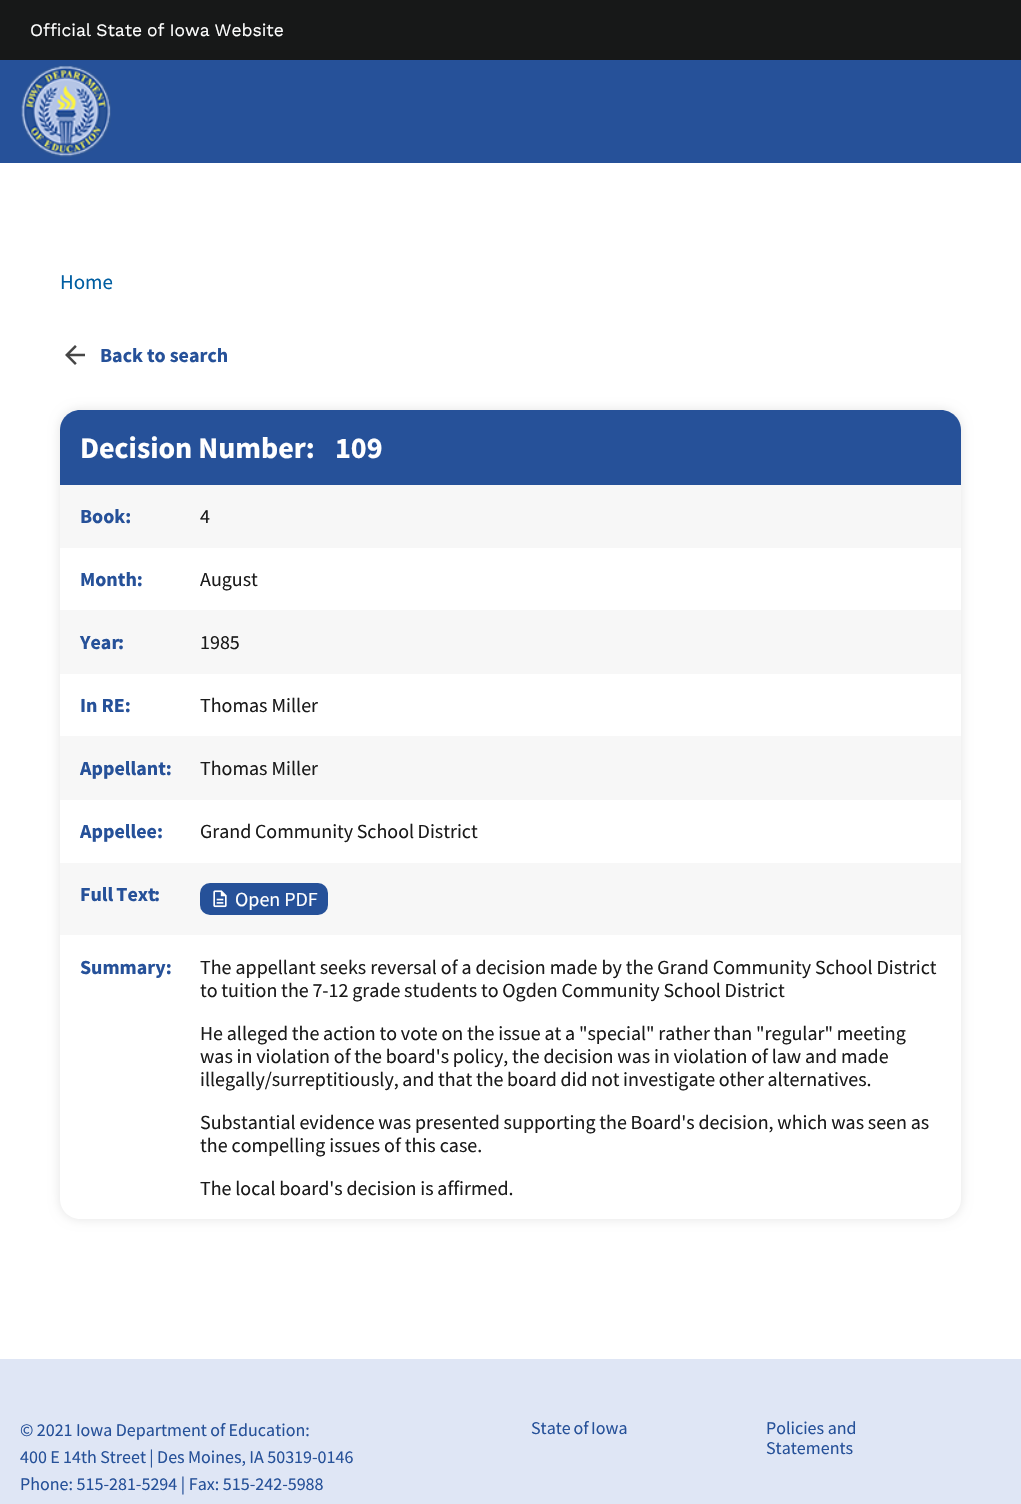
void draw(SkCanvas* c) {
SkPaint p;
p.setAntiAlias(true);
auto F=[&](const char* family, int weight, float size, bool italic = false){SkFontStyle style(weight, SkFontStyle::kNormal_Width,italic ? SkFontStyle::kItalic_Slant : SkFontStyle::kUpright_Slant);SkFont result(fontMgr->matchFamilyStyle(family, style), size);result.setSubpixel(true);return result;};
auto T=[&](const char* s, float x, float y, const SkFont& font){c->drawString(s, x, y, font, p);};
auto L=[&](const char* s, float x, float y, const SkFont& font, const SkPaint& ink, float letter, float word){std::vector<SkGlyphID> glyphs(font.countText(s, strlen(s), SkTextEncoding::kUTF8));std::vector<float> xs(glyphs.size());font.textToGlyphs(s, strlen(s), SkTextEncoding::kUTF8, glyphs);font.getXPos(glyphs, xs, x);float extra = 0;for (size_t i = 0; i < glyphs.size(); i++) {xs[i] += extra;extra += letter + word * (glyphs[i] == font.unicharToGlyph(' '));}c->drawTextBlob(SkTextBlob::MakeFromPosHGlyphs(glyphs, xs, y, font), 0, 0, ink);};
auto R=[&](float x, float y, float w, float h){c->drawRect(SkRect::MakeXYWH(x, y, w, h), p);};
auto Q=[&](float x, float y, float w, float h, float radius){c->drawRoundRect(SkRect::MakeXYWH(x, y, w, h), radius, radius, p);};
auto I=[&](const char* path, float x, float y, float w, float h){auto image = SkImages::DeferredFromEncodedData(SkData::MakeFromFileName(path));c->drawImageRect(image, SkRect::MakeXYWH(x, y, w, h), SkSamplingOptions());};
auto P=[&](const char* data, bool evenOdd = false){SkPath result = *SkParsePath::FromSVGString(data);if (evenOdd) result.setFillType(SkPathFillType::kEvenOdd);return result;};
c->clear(0xffffffff);
p.setColor(0xff171818);
R(0,0,1021,60);
auto f1 = F("Work Sans",400,17.5);
p.setColor(0xffffffff);
L("Official State of Iowa Website",30,36,f1,p,0,-1);
p.setColor(0xff265199);
R(0,60,1021,103);
I("1.png",21,65,90,92);
auto f2 = F("Source Sans Pro",400,21);
p.setColor(0xff005ea2);
T("Home",60,289,f2);
I("2.png",65,345,20,20);
auto f3 = F("Source Sans Pro",700,20);
p.setColor(0xff265199);
T("Back to search",100,362,f3);
c->save();
c->clipPath(P("M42 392h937v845h-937zm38 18h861c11 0 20 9 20 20v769c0 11-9 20-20 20h-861c-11 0-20-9-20-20v-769c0-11 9-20 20-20z",true),true);
p.setColor(0x1c000000);
p.setMaskFilter(SkMaskFilter::MakeBlur(kNormal_SkBlurStyle, 5.5));
c->drawRoundRect(SkRect::MakeXYWH(60,410,901,809),20,20,p);
p.setMaskFilter(nullptr);
c->restore();
p.setColor(0xff265199);
c->drawPath(P("M80 410h861c11 0 20 9 20 20v55h-901v-55c0-11 9-20 20-20z"),p);
auto f4 = F("Source Sans Pro",700,30);
p.setColor(0xffffffff);
T("Decision Number:",80,458,f4);
T("109",335,458,f4);
p.setColor(0xfff7f7f7);
R(60,485,901,63);
p.setColor(0xff265199);
T("Book:",80,523,f3);
auto f5 = F("Source Sans Pro",400,20);
p.setColor(0xff1b1b1b);
T("4",200,523,f5);
p.setColor(0xff265199);
T("Month:",80,586,f3);
p.setColor(0xff1b1b1b);
T("August",200,586,f5);
p.setColor(0xfff7f7f7);
R(60,610,901,64);
p.setColor(0xff265199);
T("Year",80,649,f3);
T(":",118,649,f3);
p.setColor(0xff1b1b1b);
T("1985",200,649,f5);
p.setColor(0xff265199);
T("In RE:",80,712,f3);
p.setColor(0xff1b1b1b);
T("Thomas Miller",200,712,f5);
p.setColor(0xfff7f7f7);
R(60,736,901,64);
p.setColor(0xff265199);
T("Appellant:",80,775,f3);
p.setColor(0xff1b1b1b);
T("Thomas Miller",200,775,f5);
p.setColor(0xff265199);
T("Appellee:",80,838,f3);
p.setColor(0xff1b1b1b);
L("Grand Community School District",200,838,f5,p,0,-.5);
p.setColor(0xfff7f7f7);
R(60,863,901,72);
p.setColor(0xff265199);
L("Full Text",80,901,f3,p,0,-1);
T(":",154,901,f3);
Q(200,883,128,32,10);
I("3.png",213,890,14,18);
p.setColor(0xffffffff);
T("Open PDF",235,906,f5);
p.setColor(0xff265199);
T("Summary:",80,974,f3);
p.setColor(0xff1b1b1b);
T("The appellant seeks reversal of a decision made by the Grand Community School District",200,974,f5);
L("to tuition the 7-12 grade students to Ogden Community School District",200,997,f5,p,0,-.25);
L("He alleged the action to vote on the issue at a \"special\" rather than \"regular\" meeting",200,1040,f5,p,0,-.25);
L("was in violation of the board's policy, the decision was in violation of law and made",200,1063,f5,p,0,-.2);
L("illegally/surreptitiously, and that the board did not investigate other alternatives.",200,1086,f5,p,0,-.5);
L("Substantial evidence was presented supporting the Board's decision, which was seen as",200,1129,f5,p,0,-.25);
T("the compelling issues of this case.",200,1152,f5);
L("The local board's decision is affirmed.",200,1195,f5,p,0,-.25);
p.setColor(0xffdfe6f5);
R(0,1359,1021,145);
auto f6 = F("Source Sans Pro",400,18);
p.setColor(0xff265199);
L("© 2021 Iowa Department of Education:",20,1436,f6,p,0,-.25);
L("400 E 14th Street | Des Moines, IA 50319-0146",20,1463,f6,p,0,-.25);
T("Phone: 515-281-5294 | Fax: 515-242-5988",20,1490,f6);
L("State of Iowa",531,1434,f6,p,0,-1);
T("Policies and",766,1434,f6);
T("Statements",766,1454,f6);
}
